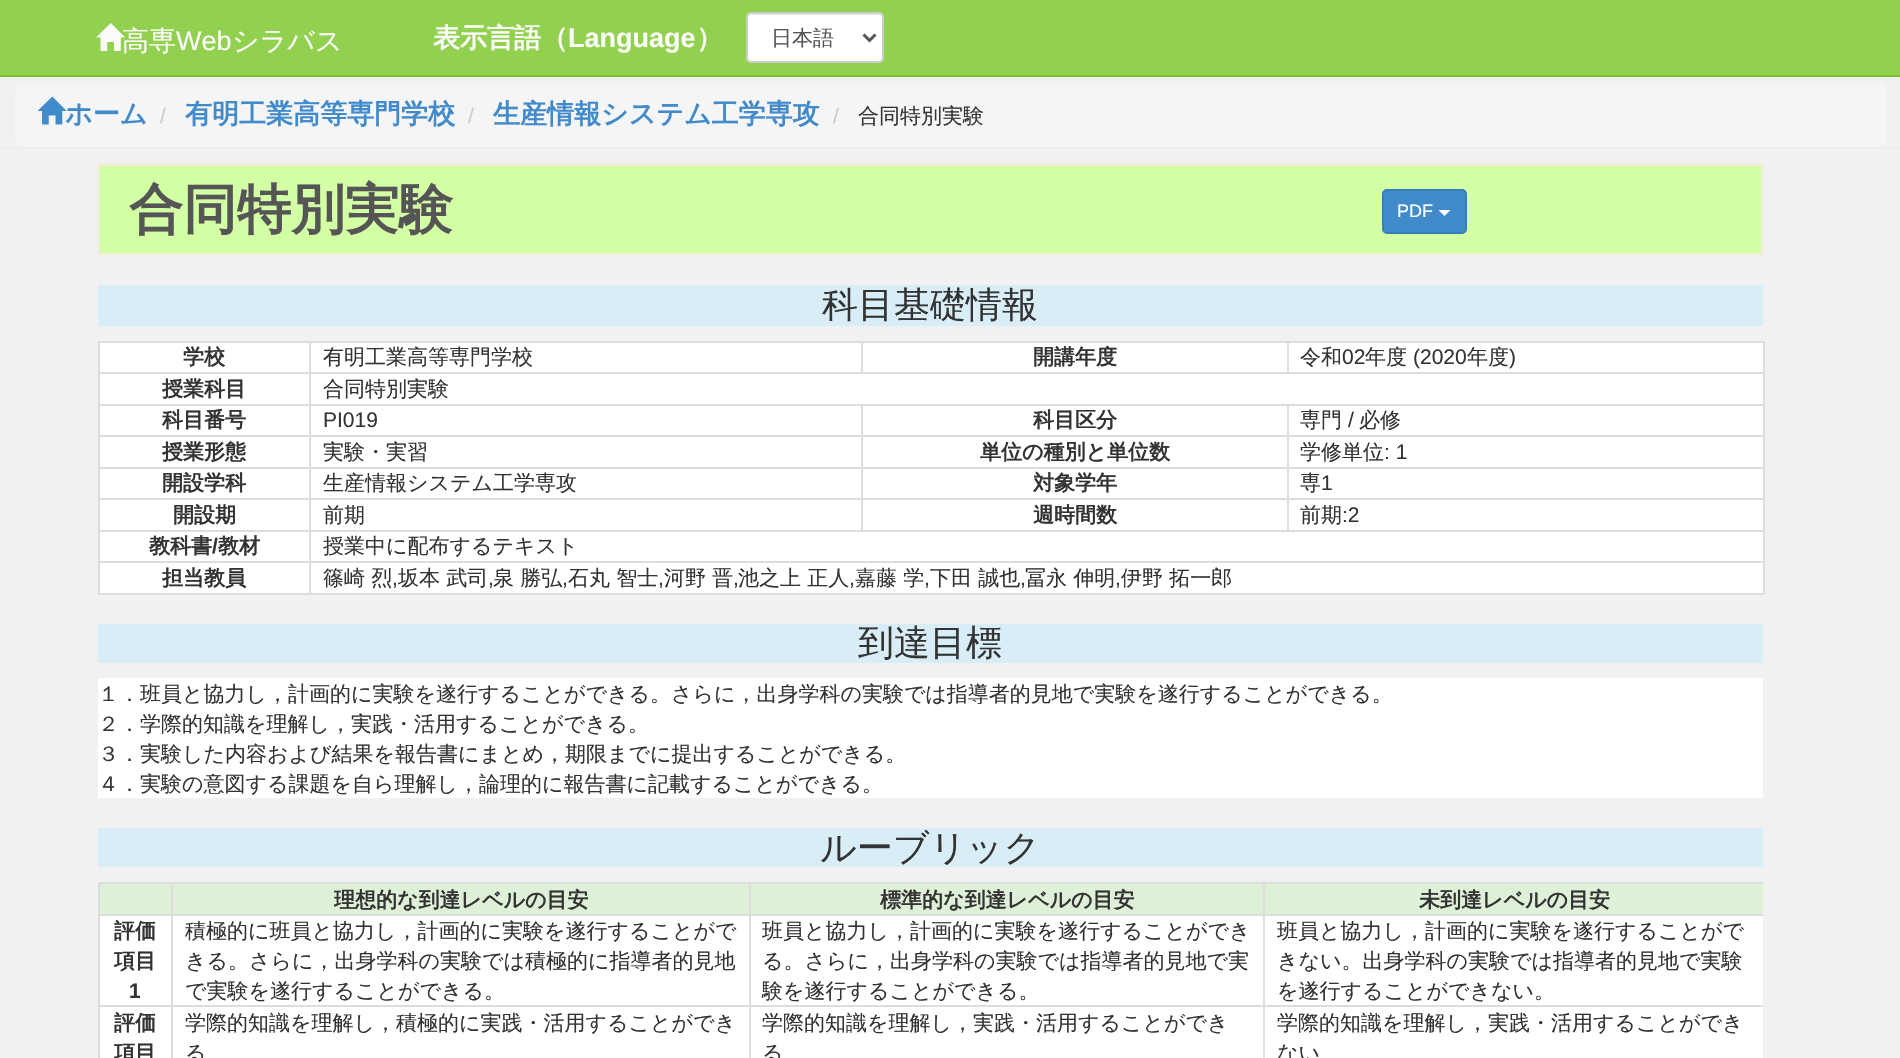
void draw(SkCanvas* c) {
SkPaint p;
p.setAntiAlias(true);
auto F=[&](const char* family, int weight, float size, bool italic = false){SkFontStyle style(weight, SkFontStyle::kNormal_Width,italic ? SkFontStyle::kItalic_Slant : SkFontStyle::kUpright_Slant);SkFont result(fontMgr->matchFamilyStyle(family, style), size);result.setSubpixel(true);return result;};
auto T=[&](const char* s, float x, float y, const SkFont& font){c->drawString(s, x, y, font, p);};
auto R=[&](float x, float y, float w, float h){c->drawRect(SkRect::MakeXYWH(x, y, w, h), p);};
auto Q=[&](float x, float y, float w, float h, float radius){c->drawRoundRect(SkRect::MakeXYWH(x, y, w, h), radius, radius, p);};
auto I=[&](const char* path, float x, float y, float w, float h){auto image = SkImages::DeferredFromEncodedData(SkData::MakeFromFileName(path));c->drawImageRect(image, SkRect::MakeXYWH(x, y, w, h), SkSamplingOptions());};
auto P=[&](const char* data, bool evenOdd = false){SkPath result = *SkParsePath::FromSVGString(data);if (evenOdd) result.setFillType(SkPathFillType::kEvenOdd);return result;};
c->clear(0xfff1f1f1);
p.setColor(0xff92d050);
R(0,0,1900,75);
p.setColor(0xff7cbf33);
R(0,75,1900,2);
auto f1 = F("WenQuanYi Zen Hei",500,27);
p.setColor(0xfffcfbf9);
T("高専",122,50,f1);
I("1.png",96,23,30,28);
auto f2 = F("Liberation Sans",400,27);
T("Web",176,50,f2);
T("シラバス",232,50,f1);
auto f3 = F("WenQuanYi Zen Hei",700,27);
T("表示言語（",433,47,f3);
auto f4 = F("Liberation Sans",700,27);
T("Language",568,47,f4);
T("）",696,47,f3);
p.setColor(0xffffffff);
Q(746,12,138,51,6);
p.setColor(0xffececec);
c->drawPath(P("M752 15h126c2 0 4 2 4 5c0-11-22-6-26-6h-83c-4 0-26-5-26 6c0-3 2-5 5-5z"),p);
p.setStroke(true);
p.setStrokeWidth(2);
p.setColor(0xffcccccc);
c->drawRoundRect(SkRect::MakeXYWH(747,13,136,49),5,5,p);
p.setStrokeWidth(3);
p.setColor(0xff555555);
c->drawPath(P("M863.5 34.5l6 6l6-6"),p);
auto f5 = F("WenQuanYi Zen Hei",500,21);
p.setStroke(false);
T("日本語",771,45,f5);
p.setColor(0xffeeeeee);
R(0,147,1900,2);
p.setColor(0xfff5f5f5);
Q(15,84,1871,63,6);
p.setColor(0xff428bca);
T("ホーム",65,123,f3);
I("2.png",37,96,30,29);
auto f6 = F("Liberation Sans",400,21);
p.setColor(0xffcccccc);
T("/",160,123,f6);
p.setColor(0xff428bca);
T("有明工業高等専門学校",185,123,f3);
p.setColor(0xffcccccc);
T("/",468,123,f6);
p.setColor(0xff428bca);
T("生産情報システム工学専攻",493,123,f3);
p.setColor(0xffcccccc);
T("/",833,123,f6);
p.setColor(0xff333333);
T("合同特別実験",858,123,f5);
p.setColor(0xffd3ffa5);
c->drawRect(SkRect::MakeXYWH(99,165,1663,89),p);
p.setStroke(true);
p.setStrokeWidth(2);
p.setColor(0xfff1ecd2);
c->drawRect(SkRect::MakeXYWH(99,165,1663,89),p);
auto f7 = F("WenQuanYi Zen Hei",700,54);
p.setStroke(false);
p.setColor(0xff555555);
T("合同特別実験",129,228,f7);
p.setColor(0xff428bca);
c->drawRoundRect(SkRect::MakeXYWH(1383,190,83,43),4,4,p);
p.setStroke(true);
p.setColor(0xff357ebd);
c->drawRoundRect(SkRect::MakeXYWH(1383,190,83,43),4,4,p);
auto f8 = F("Liberation Sans",400,18);
p.setStroke(false);
p.setColor(0xffffffff);
T("PDF",1397,217,f8);
c->drawPath(P("M1438.5 210h12l-6 6z"),p);
p.setColor(0xffd9edf7);
R(98,285,1665,41);
auto f9 = F("WenQuanYi Zen Hei",500,36);
p.setColor(0xff333333);
T("科目基礎情報",822,317,f9);
p.setColor(0xffffffff);
R(100,343,1663,250);
p.setColor(0xffdddddd);
R(98,341,1666,2);
R(1763,341,2,253);
R(98,593,1666,2);
R(98,341,2,253);
auto f10 = F("WenQuanYi Zen Hei",700,21);
p.setColor(0xff333333);
T("学校",183,364,f10);
p.setColor(0xffdddddd);
R(309,372,1455,2);
R(1287,404,477,2);
R(1287,435,477,2);
R(1287,467,477,2);
R(1287,498,477,2);
R(309,530,1455,2);
R(1287,498,2,33);
R(861,498,428,2);
R(1287,467,2,33);
R(861,467,428,2);
R(1287,435,2,33);
R(861,435,428,2);
R(1287,404,2,33);
R(861,404,428,2);
R(861,498,2,33);
R(309,498,554,2);
R(861,467,2,33);
R(309,467,554,2);
R(861,435,2,33);
R(309,435,554,2);
R(861,404,2,33);
R(309,404,554,2);
R(309,561,1455,2);
R(309,561,2,33);
R(98,561,213,2);
R(309,530,2,33);
R(98,530,213,2);
R(309,498,2,33);
R(98,498,213,2);
R(309,467,2,33);
R(98,467,213,2);
R(309,435,2,33);
R(98,435,213,2);
R(309,404,2,33);
R(98,404,213,2);
R(309,372,2,33);
R(98,372,213,2);
R(309,341,2,33);
p.setColor(0xff333333);
T("有明工業高等専門学校",323,364,f5);
p.setColor(0xffdddddd);
R(861,341,2,33);
p.setColor(0xff333333);
T("開講年度",1033,364,f10);
p.setColor(0xffdddddd);
R(1287,341,2,33);
p.setColor(0xff333333);
T("令和",1300,364,f5);
T("02",1342,364,f6);
T("年度",1365,364,f5);
T("(2020",1413,364,f6);
T("年度",1467,364,f5);
T(")",1509,364,f6);
T("授業科目",162,396,f10);
T("合同特別実験",323,396,f5);
T("科目番号",162,427,f10);
T("PI019",323,427,f6);
T("科目区分",1033,427,f10);
T("専門",1300,427,f5);
T("/",1348,427,f6);
T("必修",1359,427,f5);
T("授業形態",162,459,f10);
T("実験・実習",323,459,f5);
T("単位の種別と単位数",980,459,f10);
T("学修単位",1300,459,f5);
T(": 1",1384,459,f6);
T("開設学科",162,490,f10);
T("生産情報システム工学専攻",323,490,f5);
T("対象学年",1033,490,f10);
T("専",1300,490,f5);
T("1",1321,490,f6);
T("開設期",173,522,f10);
T("前期",323,522,f5);
T("週時間数",1033,522,f10);
T("前期",1300,522,f5);
T(":2",1342,522,f6);
T("教科書",149,553,f10);
auto f11 = F("Liberation Sans",700,21);
T("/",212,553,f11);
T("教材",218,553,f10);
T("授業中に配布するテキスト",323,553,f5);
T("担当教員",162,585,f10);
T("篠崎 烈",323,585,f5);
T(",",392,585,f6);
T("坂本 武司",398,585,f5);
T(",",488,585,f6);
T("泉 勝弘",493,585,f5);
T(",",562,585,f6);
T("石丸 智士",568,585,f5);
T(",",658,585,f6);
T("河野 晋",664,585,f5);
T(",",733,585,f6);
T("池之上 正人",738,585,f5);
T(",",849,585,f6);
T("嘉藤 学",855,585,f5);
T(",",924,585,f6);
T("下田 誠也",930,585,f5);
T(",",1020,585,f6);
T("冨永 伸明",1025,585,f5);
T(",",1115,585,f6);
T("伊野 拓一郎",1121,585,f5);
p.setColor(0xffd9edf7);
R(98,624,1665,39);
p.setColor(0xff333333);
T("到達目標",858,655,f9);
p.setColor(0xffffffff);
R(98,678,1665,120);
p.setColor(0xff333333);
T("１．班員と協力し，計画的に実験を遂行することができる。さらに，出身学科の実験では指導者的見地で実験を遂行することができる。",98,701,f5);
T("２．学際的知識を理解し，実践・活用することができる。",98,731,f5);
T("３．実験した内容および結果を報告書にまとめ，期限までに提出することができる。",98,761,f5);
T("４．実験の意図する課題を自ら理解し，論理的に報告書に記載することができる。",98,791,f5);
p.setColor(0xffd9edf7);
R(98,828,1665,39);
p.setColor(0xff333333);
T("ルーブリック",820,860,f9);
p.setColor(0xffffffff);
R(100,916,1663,142);
p.setColor(0xffdddddd);
R(98,882,1665,2);
R(98,882,2,176);
p.setColor(0xffdff0d8);
R(100,884,1663,30);
p.setColor(0xffdddddd);
R(1263,914,500,2);
R(1263,1005,500,2);
R(1263,1005,2,53);
R(749,1005,516,2);
R(1263,914,2,93);
R(749,914,516,2);
R(749,1005,2,53);
R(171,1005,579,2);
R(749,914,2,93);
R(171,914,579,2);
R(171,1005,2,53);
R(98,1005,75,2);
R(171,914,2,93);
R(98,914,75,2);
R(171,882,2,33);
p.setColor(0xff333333);
T("理想的な到達レベルの目安",334,907,f10);
p.setColor(0xffdddddd);
R(749,882,2,33);
p.setColor(0xff333333);
T("標準的な到達レベルの目安",880,907,f10);
p.setColor(0xffdddddd);
R(1263,882,2,33);
p.setColor(0xff333333);
T("未到達レベルの目安",1419,907,f10);
T("評価",114,938,f10);
T("項目",114,968,f10);
T("1",129,998,f11);
T("積極的に班員と協力し，計画的に実験を遂行することがで",185,938,f5);
T("きる。さらに，出身学科の実験では積極的に指導者的見地",185,968,f5);
T("で実験を遂行することができる。",185,998,f5);
T("班員と協力し，計画的に実験を遂行することができ",762,938,f5);
T("る。さらに，出身学科の実験では指導者的見地で実",762,968,f5);
T("験を遂行することができる。",762,998,f5);
T("班員と協力し，計画的に実験を遂行することがで",1277,938,f5);
T("きない。出身学科の実験では指導者的見地で実験",1277,968,f5);
T("を遂行することができない。",1277,998,f5);
T("評価",114,1030,f10);
T("項目",114,1060,f10);
T("学際的知識を理解し，積極的に実践・活用することができ",185,1030,f5);
T("る",185,1060,f5);
T("学際的知識を理解し，実践・活用することができ",762,1030,f5);
T("る",762,1060,f5);
T("学際的知識を理解し，実践・活用することができ",1277,1030,f5);
T("ない",1277,1060,f5);
}
